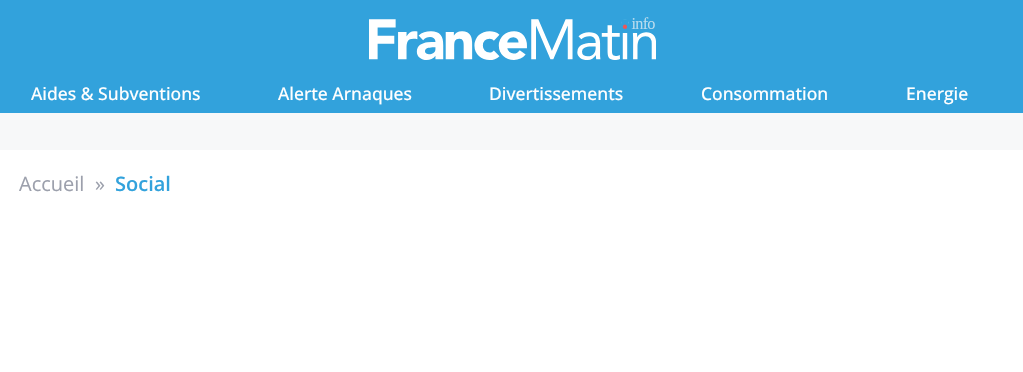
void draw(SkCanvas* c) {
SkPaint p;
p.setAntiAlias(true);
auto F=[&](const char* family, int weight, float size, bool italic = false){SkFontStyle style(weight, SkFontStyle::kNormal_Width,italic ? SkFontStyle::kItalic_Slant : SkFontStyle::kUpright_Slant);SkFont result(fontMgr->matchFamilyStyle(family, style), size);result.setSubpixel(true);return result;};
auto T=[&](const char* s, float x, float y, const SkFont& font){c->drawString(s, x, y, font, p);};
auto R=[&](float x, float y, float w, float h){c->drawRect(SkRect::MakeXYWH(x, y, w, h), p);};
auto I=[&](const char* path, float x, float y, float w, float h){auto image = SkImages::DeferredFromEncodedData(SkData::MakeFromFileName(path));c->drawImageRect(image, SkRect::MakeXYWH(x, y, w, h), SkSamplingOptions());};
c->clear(0xfff7f8f9);
p.setColor(0xff32a2dc);
R(0,0,1023,113);
I("1.png",369,17,287,43);
auto f1 = F("Open Sans",500,17.5);
p.setColor(0xffffffff);
T("Aides & Subventions",31,100,f1);
T("Alerte Arnaques",278,100,f1);
T("Divertissements",489,100,f1);
T("Consommation",701,100,f1);
T("Energie",906,100,f1);
R(0,150,1023,222);
auto f2 = F("Open Sans",400,20);
p.setColor(0xff9ca0ac);
T("Accueil",19,191,f2);
T("»",95,191,f2);
auto f3 = F("Open Sans",600,20);
p.setColor(0xff32a2dc);
T("Social",115,191,f3);
}
